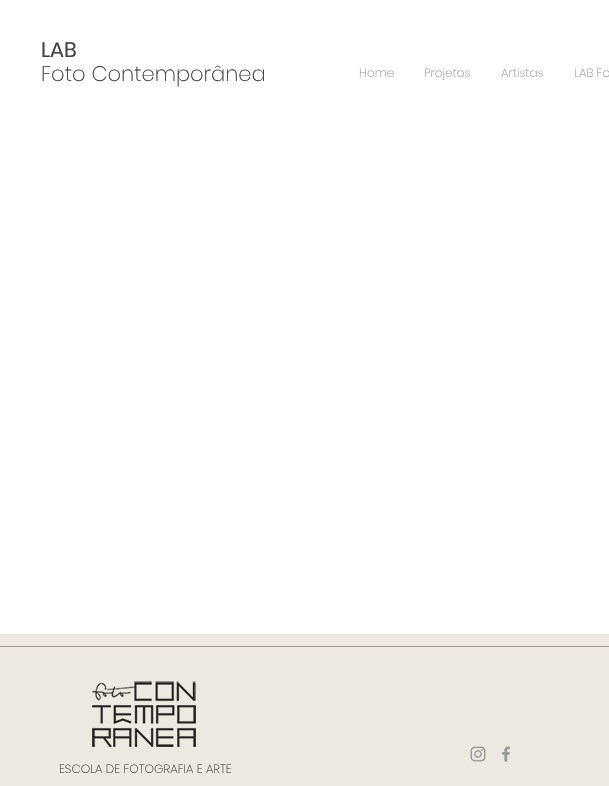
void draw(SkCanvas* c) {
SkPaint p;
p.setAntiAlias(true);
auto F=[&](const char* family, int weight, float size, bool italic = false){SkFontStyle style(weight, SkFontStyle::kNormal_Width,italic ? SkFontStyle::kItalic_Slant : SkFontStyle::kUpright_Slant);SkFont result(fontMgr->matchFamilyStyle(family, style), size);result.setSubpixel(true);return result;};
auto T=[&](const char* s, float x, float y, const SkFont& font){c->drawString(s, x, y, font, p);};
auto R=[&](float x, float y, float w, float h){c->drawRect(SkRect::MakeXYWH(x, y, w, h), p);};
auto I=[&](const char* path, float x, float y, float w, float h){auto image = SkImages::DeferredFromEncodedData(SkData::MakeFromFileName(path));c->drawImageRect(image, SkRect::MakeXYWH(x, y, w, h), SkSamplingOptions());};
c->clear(0xffede9e1);
p.setColor(0xffffffff);
R(0,0,609,634);
auto f1 = F("Poppins",400,21);
p.setColor(0xff414141);
T("LAB",41,57,f1);
auto f2 = F("Poppins",200,21);
T("Foto Contemporânea",41,81,f2);
auto f3 = F("Poppins",200,12);
p.setColor(0xff999999);
T("Home",359,77,f3);
T("Projetos",424,77,f3);
T("Artistas",501,77,f3);
T("LAB Fo",574,77,f3);
R(0,646,609,1);
I("1.png",92,681,104,66);
I("2.png",470,746,16,16);
I("3.png",502,746,8,16);
p.setColor(0xff414141);
T("ESCOLA DE FOTOGRAFIA E ARTE",59,773,f3);
}
